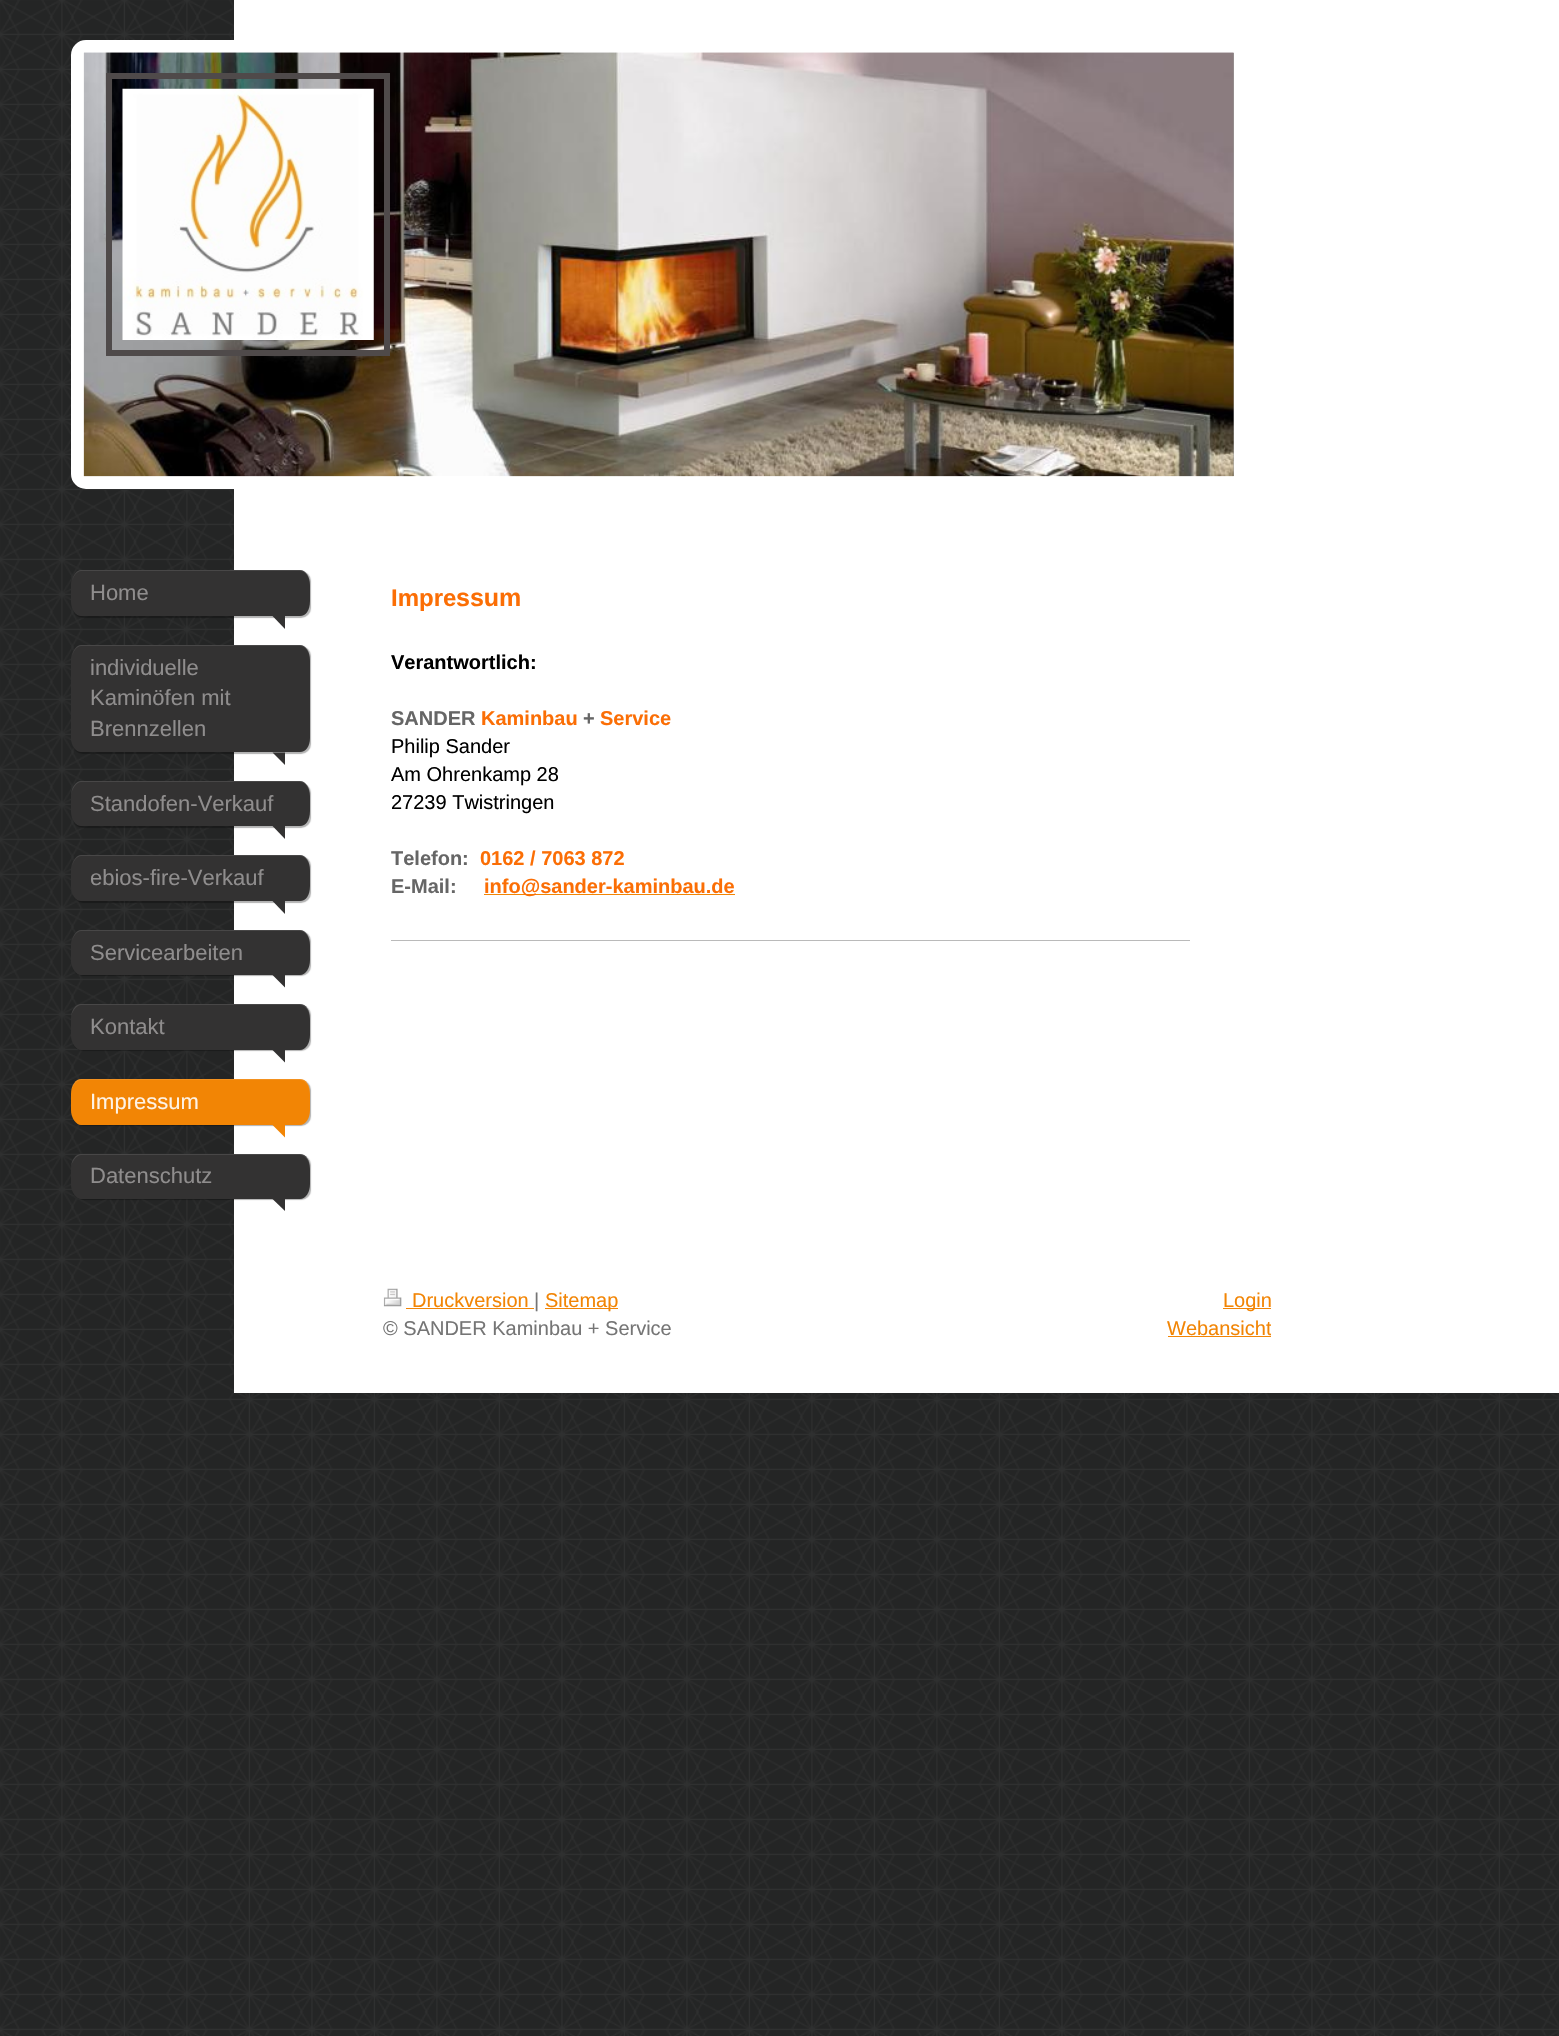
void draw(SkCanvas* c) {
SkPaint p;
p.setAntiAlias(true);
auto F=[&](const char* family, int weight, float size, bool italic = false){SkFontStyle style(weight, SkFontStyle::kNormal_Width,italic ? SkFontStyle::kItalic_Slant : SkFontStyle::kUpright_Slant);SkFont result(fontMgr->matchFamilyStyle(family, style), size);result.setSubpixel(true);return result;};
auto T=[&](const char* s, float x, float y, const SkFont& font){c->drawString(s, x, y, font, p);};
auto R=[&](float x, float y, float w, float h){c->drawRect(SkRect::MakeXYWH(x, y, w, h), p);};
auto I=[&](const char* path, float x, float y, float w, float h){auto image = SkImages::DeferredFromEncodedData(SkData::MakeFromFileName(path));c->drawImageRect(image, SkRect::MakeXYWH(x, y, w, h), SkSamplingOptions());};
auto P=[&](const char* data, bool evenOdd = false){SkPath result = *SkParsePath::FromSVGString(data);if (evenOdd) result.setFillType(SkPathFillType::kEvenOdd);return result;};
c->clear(0xff242525);
I("1.png",0,0,1559,2036);
p.setColor(0xffffffff);
R(234,0,1325,1393);
p.setStroke(true);
p.setStrokeWidth(13);
c->drawRoundRect(SkRect::MakeXYWH(77.5,46.5,1162,436),8.5,8.5,p);
I("2.png",83,52,1151,425);
p.setStroke(false);
p.setColor(0xffa0a0a0);
R(1233,53,1,423);
I("3.png",83,52,1151,425);
p.setStroke(true);
p.setStrokeWidth(6);
p.setColor(0xff4f4a4a);
c->drawRect(SkRect::MakeXYWH(109,76,278,277),p);
I("4.png",122,88,252,252);
p.setStroke(false);
p.setColor(0x4d000000);
p.setMaskFilter(SkMaskFilter::MakeBlur(kNormal_SkBlurStyle, .5));
c->drawRoundRect(SkRect::MakeXYWH(73,571,238,47),10,10,p);
p.setMaskFilter(nullptr);
p.setColor(0xff333232);
c->drawPath(P("M81 570h219c6 0 10 7 10 15v16c0 9-4 15-10 15h-219c-5 0-10-6-10-15v-16c0-8 5-15 10-15z"),p);
p.setColor(0x1affffff);
c->drawPath(P("M81 571h219c6 0 10 7 10 15v-1c0-8-4-15-10-15h-219c-4 0-8 5-9 12c1-6 5-11 9-11z"),p);
auto f1 = F("Liberation Sans",400,22);
p.setColor(0xff8f8d8d);
T("Home",90,600,f1);
p.setColor(0xff333232);
c->drawPath(P("M272.5 616h12.5v13z"),p);
p.setColor(0x4d000000);
p.setMaskFilter(SkMaskFilter::MakeBlur(kNormal_SkBlurStyle, .5));
c->drawRoundRect(SkRect::MakeXYWH(73,646,238,108),10,10,p);
p.setMaskFilter(nullptr);
p.setColor(0xff333232);
c->drawPath(P("M81 645h219c6 0 10 7 10 15v78c0 8-4 14-10 14h-219c-5 0-10-6-10-14v-78c0-8 5-15 10-15z"),p);
p.setColor(0x1affffff);
c->drawPath(P("M81 646h219c6 0 10 7 10 15v-1c0-8-4-15-10-15h-219c-4 0-8 5-9 12c1-6 5-11 9-11z"),p);
p.setColor(0xff8f8d8d);
T("individuelle",90,675,f1);
T("Kaminöfen mit",90,705,f1);
T("Brennzellen",90,736,f1);
p.setColor(0xff333232);
c->drawPath(P("M272.5 752.5h12.5v12.5z"),p);
p.setColor(0x4d000000);
p.setMaskFilter(SkMaskFilter::MakeBlur(kNormal_SkBlurStyle, .5));
c->drawRoundRect(SkRect::MakeXYWH(73,783,238,45),10,10,p);
p.setMaskFilter(nullptr);
p.setColor(0xff333232);
c->drawPath(P("M81 781h219c6 0 10 7 10 15v15c0 9-4 15-10 15h-219c-5 0-10-6-10-15v-15c0-8 5-15 10-15z"),p);
p.setColor(0x1affffff);
c->drawPath(P("M81 782h219c6 0 10 7 10 16v-2c0-8-4-15-10-15h-219c-5 0-9 6-10 13c2-7 6-12 10-12z"),p);
p.setColor(0xff8f8d8d);
T("Standofen-Verkauf",90,811,f1);
p.setColor(0xff333232);
c->drawPath(P("M272.5 826h12.5v13z"),p);
p.setColor(0x4d000000);
p.setMaskFilter(SkMaskFilter::MakeBlur(kNormal_SkBlurStyle, .5));
c->drawRoundRect(SkRect::MakeXYWH(73,856,238,47),10,10,p);
p.setMaskFilter(nullptr);
p.setColor(0xff333232);
c->drawPath(P("M81 855h219c6 0 10 7 10 15v16c0 9-4 15-10 15h-219c-5 0-10-6-10-15v-16c0-8 5-15 10-15z"),p);
p.setColor(0x1affffff);
c->drawPath(P("M81 856h219c6 0 10 7 10 15v-1c0-8-4-15-10-15h-219c-4 0-8 5-9 12c1-6 5-11 9-11z"),p);
p.setColor(0xff8f8d8d);
T("ebios-fire-Verkauf",90,885,f1);
p.setColor(0xff333232);
c->drawPath(P("M272.5 901h12.5v13z"),p);
p.setColor(0x4d000000);
p.setMaskFilter(SkMaskFilter::MakeBlur(kNormal_SkBlurStyle, .5));
c->drawRoundRect(SkRect::MakeXYWH(73,931,238,45),10,10,p);
p.setMaskFilter(nullptr);
p.setColor(0xff333232);
c->drawPath(P("M81 930h219c6 0 10 7 10 15v15c0 8-4 15-10 15h-219c-5 0-10-7-10-15v-15c0-8 5-15 10-15z"),p);
p.setColor(0x1affffff);
c->drawPath(P("M81 931h219c6 0 10 7 10 15v-1c0-8-4-15-10-15h-219c-4 0-8 5-9 12c1-6 5-11 9-11z"),p);
p.setColor(0xff8f8d8d);
T("Servicearbeiten",90,960,f1);
p.setColor(0xff333232);
c->drawPath(P("M272.5 975h12.5v12.5z"),p);
p.setColor(0x4d000000);
p.setMaskFilter(SkMaskFilter::MakeBlur(kNormal_SkBlurStyle, .5));
c->drawRoundRect(SkRect::MakeXYWH(73,1005,238,46),10,10,p);
p.setMaskFilter(nullptr);
p.setColor(0xff333232);
c->drawPath(P("M81 1004h219c6 0 10 6 10 15v16c0 8-4 15-10 15h-219c-5 0-10-7-10-15v-16c0-9 5-15 10-15z"),p);
p.setColor(0x1affffff);
c->drawPath(P("M81 1005h219c6 0 10 7 10 15v-1c0-9-4-15-10-15h-219c-5 0-9 5-10 12c2-6 6-11 10-11z"),p);
p.setColor(0xff8f8d8d);
T("Kontakt",90,1034,f1);
p.setColor(0xff333232);
c->drawPath(P("M272.5 1050h12.5v12.5z"),p);
p.setColor(0x4d000000);
p.setMaskFilter(SkMaskFilter::MakeBlur(kNormal_SkBlurStyle, .5));
c->drawRoundRect(SkRect::MakeXYWH(73,1080,238,46),10,10,p);
p.setMaskFilter(nullptr);
p.setColor(0xfff28505);
c->drawPath(P("M81 1079h219c6 0 10 6 10 15v16c0 8-4 15-10 15h-219c-5 0-10-7-10-15v-16c0-9 5-15 10-15z"),p);
p.setColor(0x1affffff);
c->drawPath(P("M81 1080h219c6 0 10 7 10 15v-1c0-9-4-15-10-15h-219c-5 0-9 5-10 12c2-6 6-11 10-11z"),p);
p.setColor(0xfffef3e6);
T("Impressum",90,1109,f1);
p.setColor(0xfff28505);
c->drawPath(P("M272.5 1125h12.5v12.5z"),p);
p.setColor(0x4d000000);
p.setMaskFilter(SkMaskFilter::MakeBlur(kNormal_SkBlurStyle, .5));
c->drawRoundRect(SkRect::MakeXYWH(73,1155,238,45),10,10,p);
p.setMaskFilter(nullptr);
p.setColor(0xff333232);
c->drawPath(P("M81 1154h219c6 0 10 6 10 15v15c0 8-4 15-10 15h-219c-5 0-10-7-10-15v-15c0-9 5-15 10-15z"),p);
p.setColor(0x1affffff);
c->drawPath(P("M81 1155h219c6 0 10 7 10 15v-1c0-9-4-15-10-15h-219c-5 0-9 5-10 12c2-6 6-11 10-11z"),p);
p.setColor(0xff8f8d8d);
T("Datenschutz",90,1183,f1);
p.setColor(0xff333232);
c->drawPath(P("M272.5 1199h12.5v12z"),p);
auto f2 = F("Liberation Sans",700,24);
p.setColor(0xfffb6e05);
T("Impre",391,606,f2);
auto f3 = F("Liberation Sans",700,25);
T("ssum",456,606,f3);
auto f4 = F("Liberation Sans",700,20);
p.setColor(0xff000000);
T("Verantwortlich:",391,669,f4);
p.setColor(0xff666666);
T("SANDER",391,725,f4);
p.setColor(0xfffb6e05);
T("Kaminbau",481,725,f4);
p.setColor(0xff666666);
T("+",583,725,f4);
p.setColor(0xfffb6e05);
T("Service",600,725,f4);
auto f5 = F("Liberation Sans",400,20);
p.setColor(0xff000000);
T("Philip Sander",391,753,f5);
T("Am Ohrenkamp 28",391,781,f5);
T("27239 Twistringen",391,809,f5);
p.setColor(0xff666666);
T("Telefon:",391,865,f4);
p.setColor(0xfffb6e05);
T("0162 / 7063 872",480,865,f4);
p.setColor(0xff666666);
T("E-Mail:",391,893,f4);
p.setColor(0xfff28505);
R(484,894,251,1);
p.setColor(0xfffb6e05);
T("info@sander-kaminbau.de",484,893,f4);
p.setColor(0xffbababa);
R(391,940,799,1);
I("5.png",383,1288,19,19);
p.setColor(0xfff28505);
T("Druckversion",412,1307,f5);
R(406,1308,128,1);
p.setColor(0xff757575);
T("|",534,1307,f5);
p.setColor(0xfff28505);
R(545,1308,73,1);
T("Sitemap",545,1307,f5);
p.setColor(0xff757575);
T("© SANDER Kaminbau + Service",383,1335,f5);
p.setColor(0xfff28505);
R(1223,1308,48,1);
T("Login",1223,1307,f5);
c->save();
c->clipRect(SkRect::MakeXYWH(384,1286,887,57));
T("Webansicht",1167,1335,f5);
c->restore();
R(1168,1336,103,1);
}
